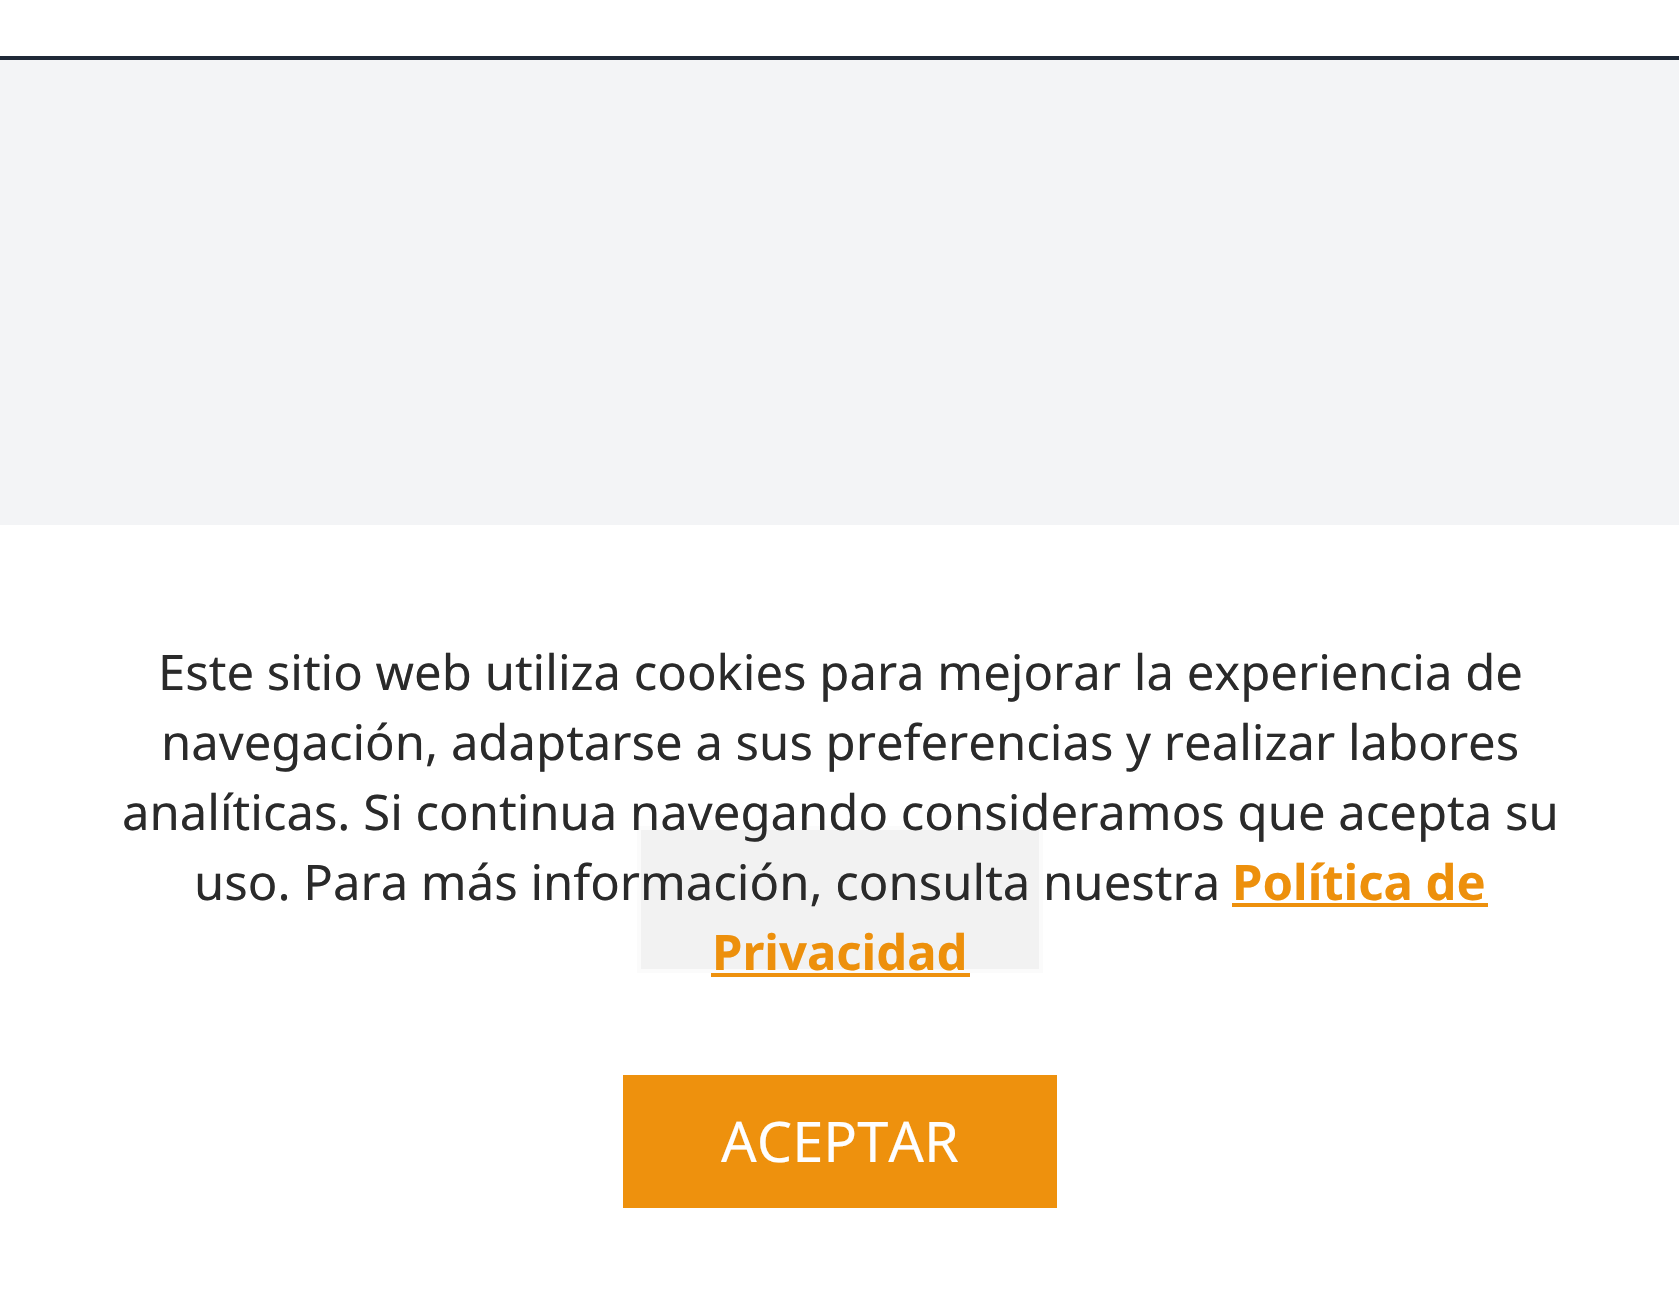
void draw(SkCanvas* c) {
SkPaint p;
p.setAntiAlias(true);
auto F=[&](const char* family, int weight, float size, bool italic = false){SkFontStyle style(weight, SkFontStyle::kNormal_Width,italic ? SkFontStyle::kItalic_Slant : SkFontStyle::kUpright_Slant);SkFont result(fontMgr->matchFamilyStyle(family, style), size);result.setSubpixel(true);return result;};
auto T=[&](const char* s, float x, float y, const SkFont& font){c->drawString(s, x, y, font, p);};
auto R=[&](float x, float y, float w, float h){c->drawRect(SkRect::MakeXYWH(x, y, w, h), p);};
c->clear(0xffffffff);
p.setColor(0xff1f2937);
R(0,56,1679,4);
p.setColor(0xfff3f4f6);
R(0,60,1679,465);
auto f1 = F("Noto Sans",400,49);
p.setColor(0xff2a2a2a);
T("Este sitio web utiliza cookies para mejorar la experiencia de",158,690,f1);
T("navegación, adaptarse a sus preferencias y realizar labores",161,760,f1);
p.setColor(0xfff2f2f2);
c->drawRect(SkRect::MakeXYWH(639,828,402,143),p);
p.setStroke(true);
p.setStrokeWidth(4);
p.setColor(0xfffbfbfb);
c->drawRect(SkRect::MakeXYWH(639,828,402,143),p);
p.setStroke(false);
p.setColor(0xff2a2a2a);
T("analíticas. Si continua navegando consideramos que acepta su",122,830,f1);
T("uso. Para más información, consulta nuestra",194,900,f1);
auto f2 = F("Noto Sans",700,49);
p.setColor(0xffed900c);
T("Política de",1232,900,f2);
R(1232,903,256,4);
T("Privacidad",712,970,f2);
p.setColor(0xffee910d);
R(711,973,259,4);
R(623,1075,434,133);
auto f3 = F("Noto Sans",400,56);
p.setColor(0xfffefeff);
T("ACEPTAR",721,1162,f3);
}
